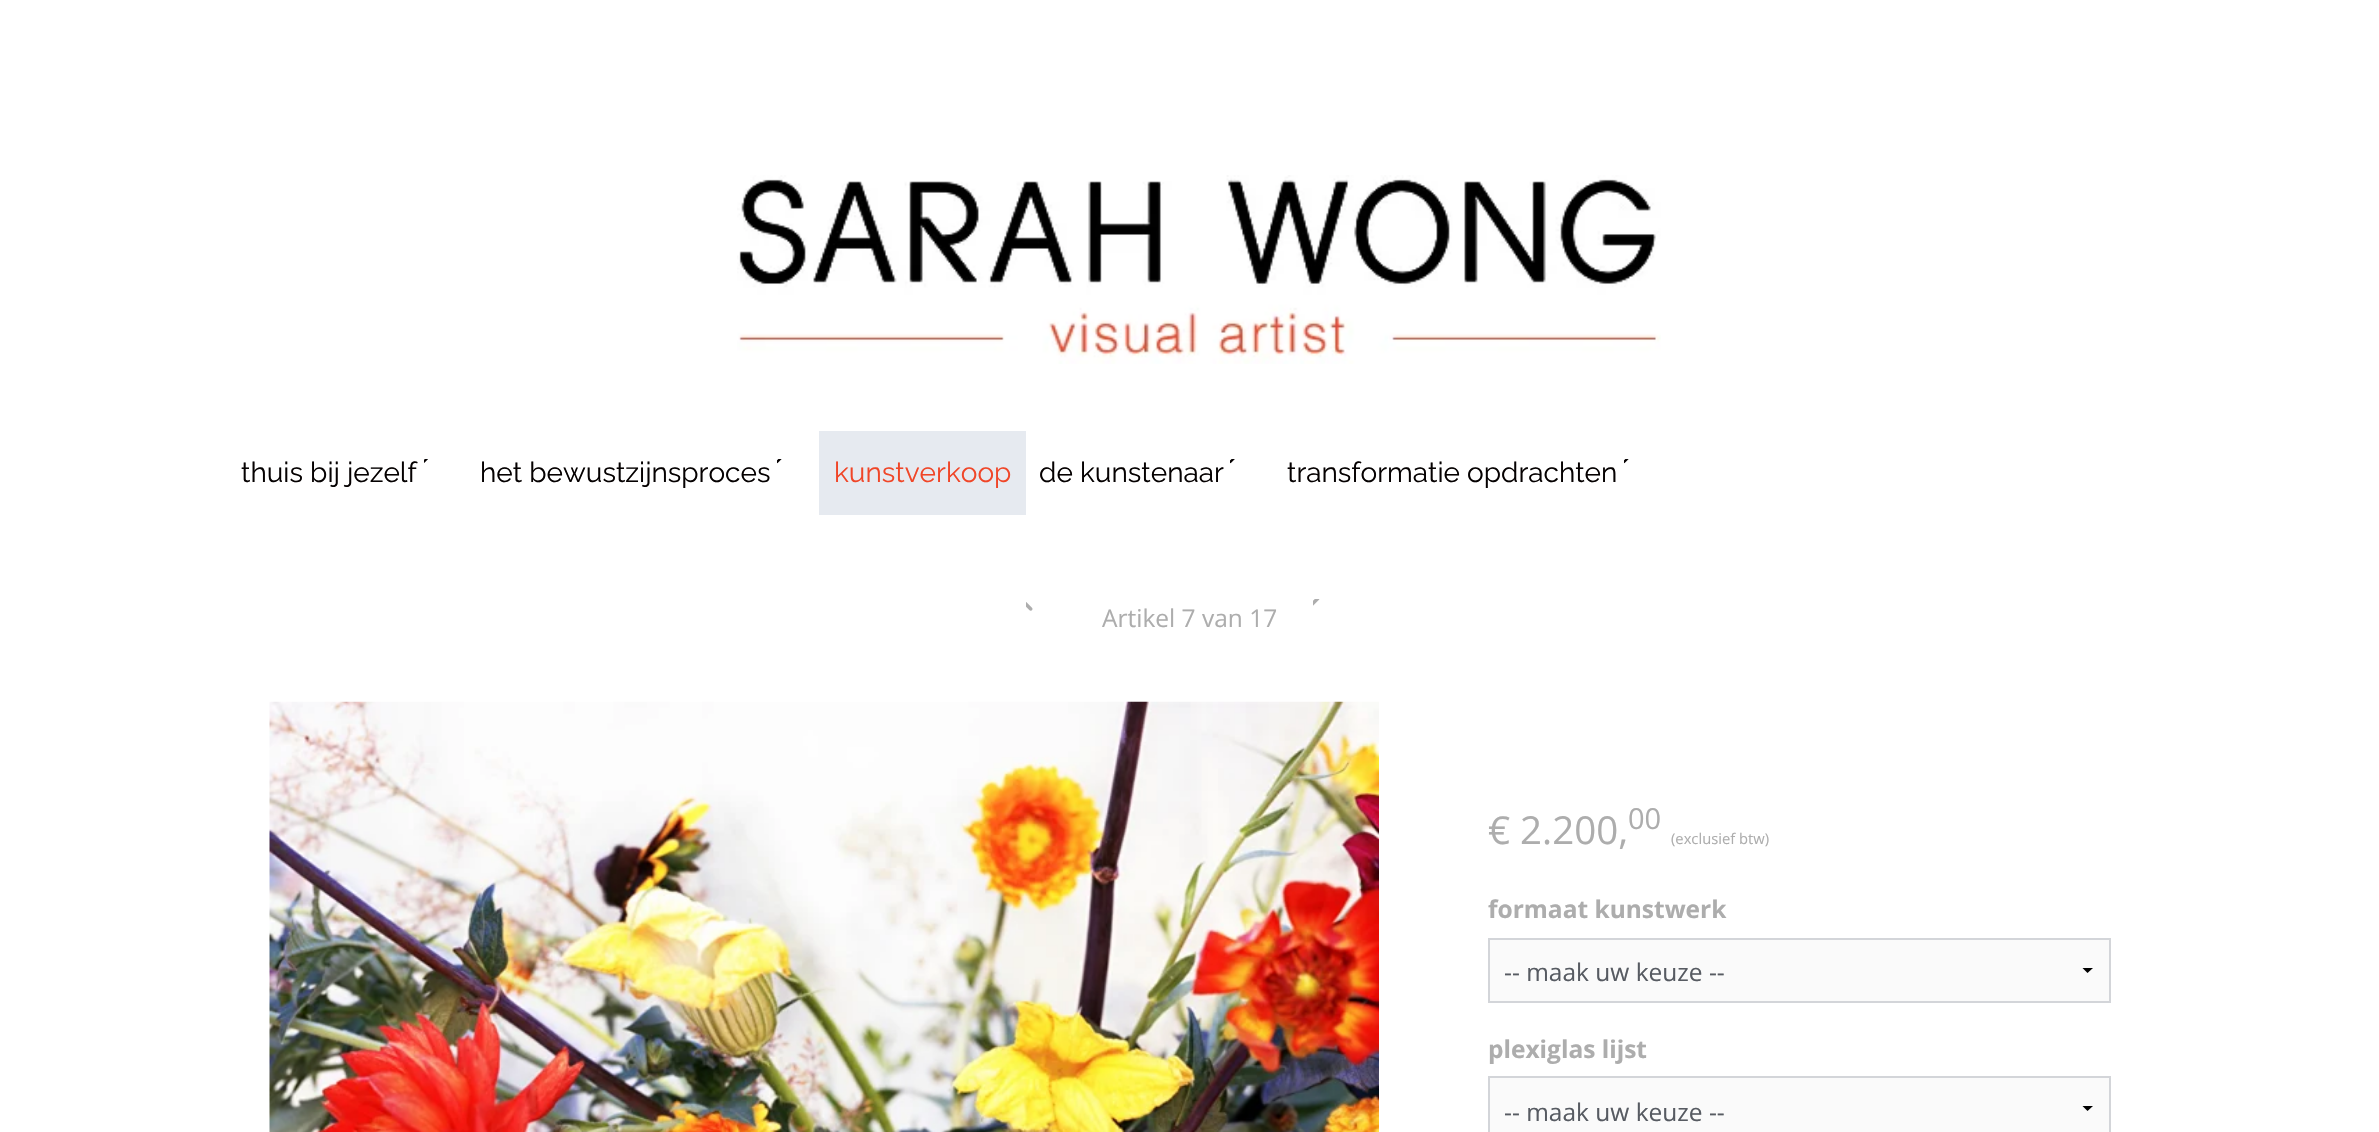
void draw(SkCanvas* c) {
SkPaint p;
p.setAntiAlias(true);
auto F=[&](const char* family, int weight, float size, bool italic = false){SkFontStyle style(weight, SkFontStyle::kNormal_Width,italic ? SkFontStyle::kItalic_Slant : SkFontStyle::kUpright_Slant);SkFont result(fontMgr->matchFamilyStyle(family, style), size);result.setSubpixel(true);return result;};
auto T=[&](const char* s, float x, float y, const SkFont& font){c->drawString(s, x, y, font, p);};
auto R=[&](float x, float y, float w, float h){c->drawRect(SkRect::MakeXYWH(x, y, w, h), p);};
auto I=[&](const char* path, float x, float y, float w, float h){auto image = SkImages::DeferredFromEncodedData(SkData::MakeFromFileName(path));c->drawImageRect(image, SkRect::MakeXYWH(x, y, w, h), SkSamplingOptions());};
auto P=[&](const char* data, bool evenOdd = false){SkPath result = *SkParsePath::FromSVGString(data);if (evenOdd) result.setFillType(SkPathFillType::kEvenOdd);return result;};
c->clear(0xffffffff);
I("1.png",737,175,924,189);
auto f1 = F("Raleway",400,28);
p.setColor(0xff050101);
T("thuis bij jezelf",241,482,f1);
I("2.png",424,459,4,4);
T("het bewustzijnsproces",480,482,f1);
I("3.png",777,459,5,5);
p.setColor(0xffe6eaf0);
R(819,431,207,84);
p.setColor(0xfff04628);
T("kunstverkoop",834,482,f1);
p.setColor(0xff050101);
T("de kunstenaar",1039,482,f1);
I("4.png",1230,459,5,5);
T("transformatie opdrachten",1287,482,f1);
I("3.png",1624,459,5,5);
I("5.png",1026,602,7,9);
I("6.png",1313,599,7,7);
auto f2 = F("Open Sans",400,24.5);
p.setColor(0xffadadad);
T("Artikel 7 van 17",1102,627,f2);
I("7.png",269,701,1110,431);
auto f3 = F("Open Sans",400,38.5);
T("€ 2.200,",1488,844,f3);
auto f4 = F("Open Sans",400,29);
T("00",1628,829,f4);
auto f5 = F("Open Sans",400,14.75);
T("(exclusief btw)",1671,844,f5);
auto f6 = F("Open Sans",700,24.5);
T("formaat kunstwerk",1488,918,f6);
p.setColor(0xfffafafa);
R(1490,940,619,61);
p.setColor(0xff000000);
c->drawPath(P("M2093 968l-5.5 5l-5-5z"),p);
p.setStroke(true);
p.setStrokeWidth(2);
p.setColor(0xffd3d5d9);
c->drawRect(SkRect::MakeXYWH(1489,939,621,63),p);
p.setStroke(false);
p.setColor(0xff575b62);
T("-- maak uw keuze --",1504,981,f2);
p.setColor(0xffadadad);
T("plexiglas lijst",1488,1058,f6);
p.setColor(0xfffafafa);
R(1490,1078,619,54);
p.setColor(0xff000000);
c->drawPath(P("M2093 1106l-5.5 5l-5-5z"),p);
p.setStroke(true);
p.setColor(0xffd3d5d9);
c->drawRect(SkRect::MakeXYWH(1489,1077,621,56),p);
p.setStroke(false);
p.setColor(0xff575b62);
T("-- maak uw keuze --",1504,1121,f2);
}
